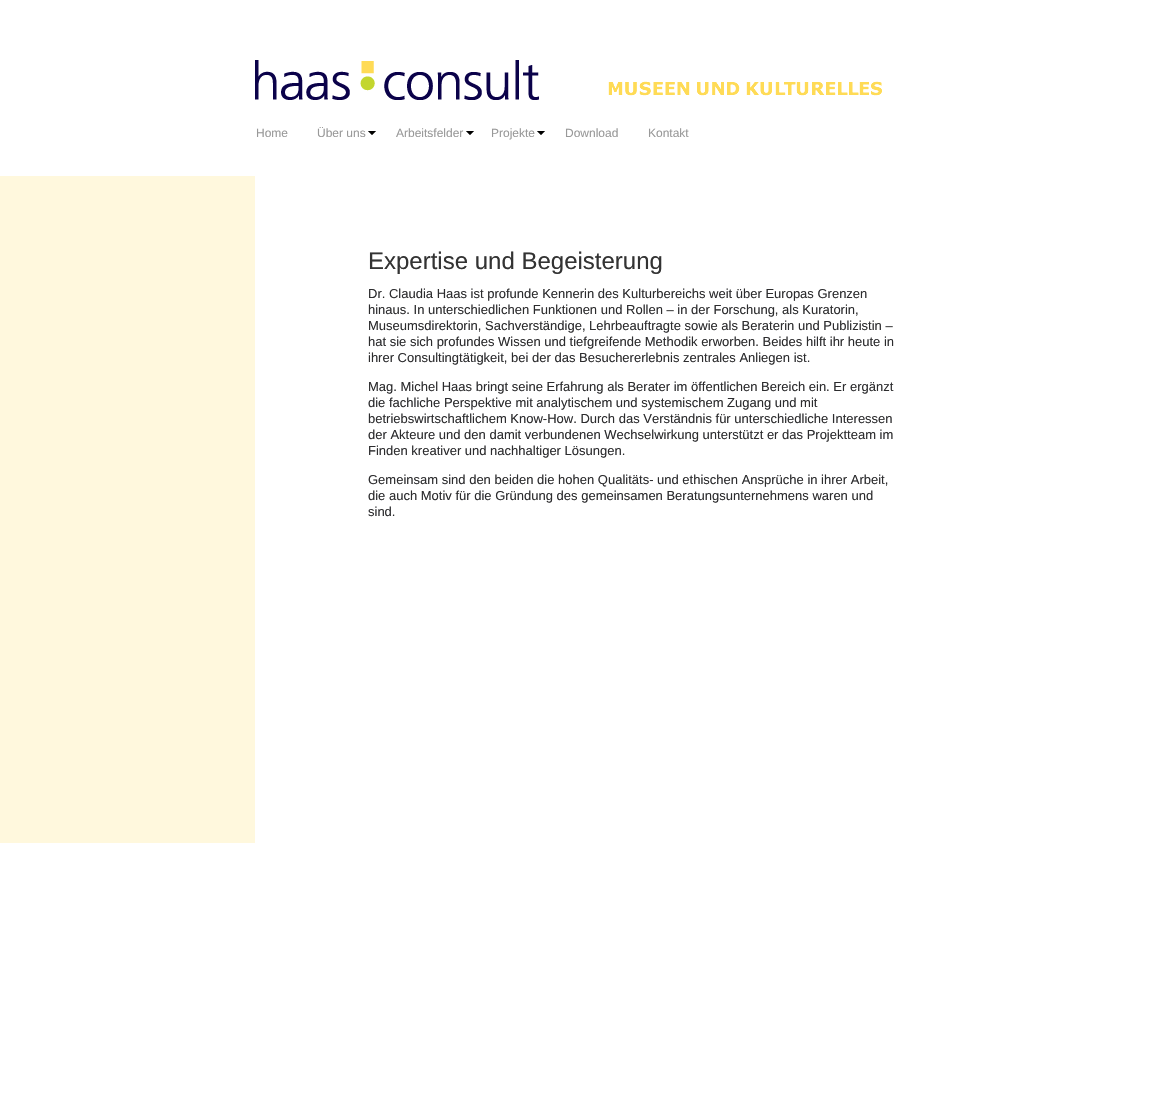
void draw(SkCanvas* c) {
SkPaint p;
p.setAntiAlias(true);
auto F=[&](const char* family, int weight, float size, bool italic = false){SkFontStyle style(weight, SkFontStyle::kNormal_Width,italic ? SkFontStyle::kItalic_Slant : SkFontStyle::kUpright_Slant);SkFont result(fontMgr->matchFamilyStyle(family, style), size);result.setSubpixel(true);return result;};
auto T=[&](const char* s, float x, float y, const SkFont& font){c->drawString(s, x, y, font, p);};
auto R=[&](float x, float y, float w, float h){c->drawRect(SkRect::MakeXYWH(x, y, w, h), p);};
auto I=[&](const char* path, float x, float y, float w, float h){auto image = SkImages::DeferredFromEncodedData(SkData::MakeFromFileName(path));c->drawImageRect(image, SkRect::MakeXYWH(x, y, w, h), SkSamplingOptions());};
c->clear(0xffffffff);
I("1.png",255,60,627,40);
auto f1 = F("Liberation Sans",400,12);
p.setColor(0xff999999);
T("Home",256,137,f1);
T("Über uns",317,137,f1);
I("2.png",368,131,8,4);
T("Arbeitsfelder",396,137,f1);
I("2.png",466,131,8,4);
T("Projekte",491,137,f1);
I("2.png",537,131,8,4);
T("Download",565,137,f1);
T("Kontakt",648,137,f1);
p.setColor(0xfffff8dd);
R(0,176,255,667);
auto f2 = F("Liberation Sans",400,24);
p.setColor(0xff333333);
T("Expertise und Begeisterung",368,269,f2);
auto f3 = F("Liberation Sans",400,13);
p.setColor(0xff2c2c2e);
T("Dr. Claudia Haas ist profunde Kennerin des Kulturbereichs weit über Europas Grenzen",368,298,f3);
T("hinaus. In unterschiedlichen Funktionen und Rollen – in der Forschung, als Kuratorin,",368,314,f3);
T("Museumsdirektorin, Sachverständige, Lehrbeauftragte sowie als Beraterin und Publizistin –",368,330,f3);
T("hat sie sich profundes Wissen und tiefgreifende Methodik erworben. Beides hilft ihr heute in",368,346,f3);
T("ihrer Consultingtätigkeit, bei der das Besuchererlebnis zentrales Anliegen ist.",368,362,f3);
T("Mag. Michel Haas bringt seine Erfahrung als Berater im öffentlichen Bereich ein. Er ergänzt",368,391,f3);
T("die fachliche Perspektive mit analytischem und systemischem Zugang und mit",368,407,f3);
T("betriebswirtschaftlichem Know-How. Durch das Verständnis für unterschiedliche Interessen",368,423,f3);
T("der Akteure und den damit verbundenen Wechselwirkung unterstützt er das Projektteam im",368,439,f3);
T("Finden kreativer und nachhaltiger Lösungen.",368,455,f3);
T("Gemeinsam sind den beiden die hohen Qualitäts- und ethischen Ansprüche in ihrer Arbeit,",368,484,f3);
T("die auch Motiv für die Gründung des gemeinsamen Beratungsunternehmens waren und",368,500,f3);
T("sind.",368,516,f3);
}
